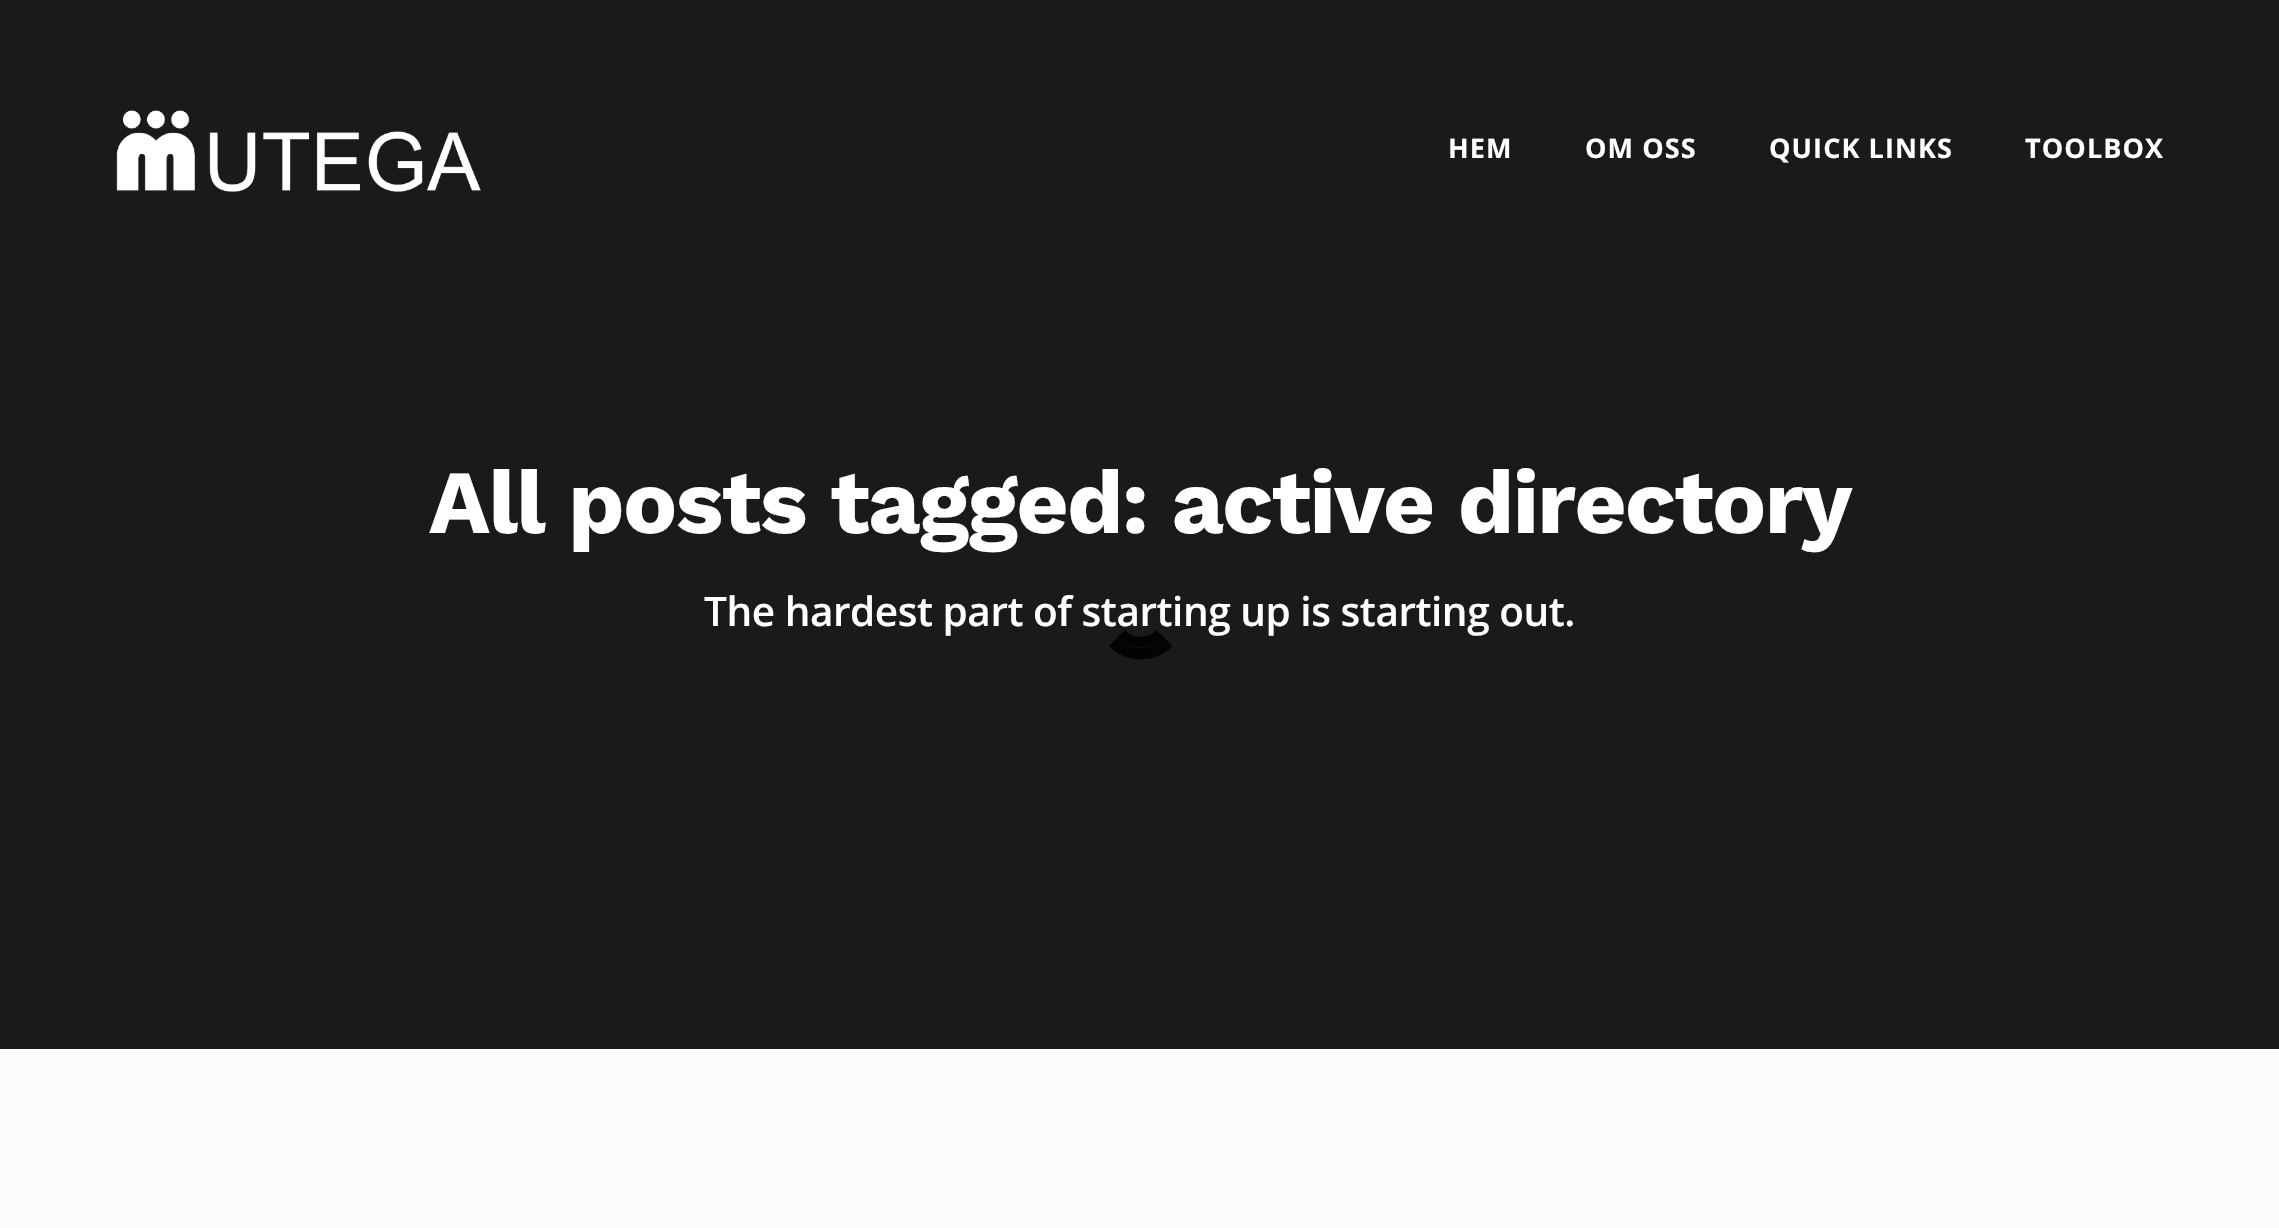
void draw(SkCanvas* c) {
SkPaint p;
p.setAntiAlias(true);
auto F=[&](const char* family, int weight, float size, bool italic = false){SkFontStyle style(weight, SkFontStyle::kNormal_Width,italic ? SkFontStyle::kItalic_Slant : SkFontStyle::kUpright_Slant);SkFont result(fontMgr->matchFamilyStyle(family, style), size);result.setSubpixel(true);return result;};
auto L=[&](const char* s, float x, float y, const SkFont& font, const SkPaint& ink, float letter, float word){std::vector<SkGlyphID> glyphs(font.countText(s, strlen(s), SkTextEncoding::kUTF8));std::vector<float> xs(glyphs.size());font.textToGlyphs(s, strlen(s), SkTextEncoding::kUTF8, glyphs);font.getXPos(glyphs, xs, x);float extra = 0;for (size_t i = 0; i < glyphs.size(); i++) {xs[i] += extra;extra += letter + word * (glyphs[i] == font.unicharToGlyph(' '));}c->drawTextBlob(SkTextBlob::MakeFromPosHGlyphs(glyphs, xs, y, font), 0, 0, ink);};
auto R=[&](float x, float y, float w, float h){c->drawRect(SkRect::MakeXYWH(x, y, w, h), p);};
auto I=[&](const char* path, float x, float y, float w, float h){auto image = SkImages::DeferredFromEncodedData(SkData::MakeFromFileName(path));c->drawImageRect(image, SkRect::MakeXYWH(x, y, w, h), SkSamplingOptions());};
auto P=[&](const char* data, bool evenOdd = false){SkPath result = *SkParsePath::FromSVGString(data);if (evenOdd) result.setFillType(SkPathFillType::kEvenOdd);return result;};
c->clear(0xfffbfbfb);
p.setColor(0xff1a1a1a);
R(0,0,2279,1049);
I("1.png",116,110,365,82);
auto f1 = F("Open Sans",700,27);
p.setColor(0xffffffff);
L("HEM",1448,158,f1,p,1.1,0);
L("OM OSS",1585,158,f1,p,1.1,0);
L("QUICK LINKS",1769,158,f1,p,1.1,0);
L("TOOLBOX",2025,158,f1,p,1.1,0);
auto f2 = F("Work Sans",700,90);
L("All posts tagged: active directory",429,533,f2,p,-1.55,0);
auto f3 = F("Open Sans",600,40.5);
L("The hardest part of starting up is starting out.",704,626,f3,p,-.45,0);
p.setStroke(true);
p.setStrokeWidth(11.2);
p.setColor(0xff030303);
c->drawPath(P("M1168.5 642c-15 15.5-40.5 15.5-55.5 0"),p);
c->drawPath(P("M1160.5 634c-10.5 11-29 11-39.5 0"),p);
}
